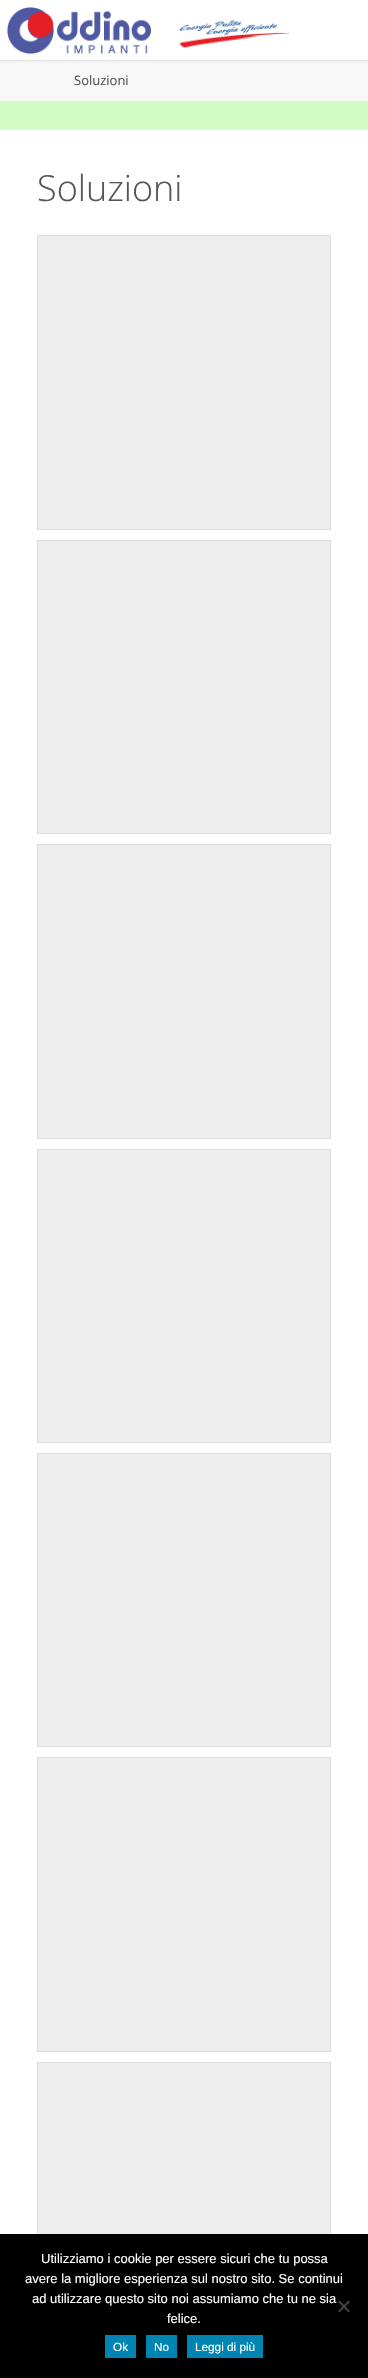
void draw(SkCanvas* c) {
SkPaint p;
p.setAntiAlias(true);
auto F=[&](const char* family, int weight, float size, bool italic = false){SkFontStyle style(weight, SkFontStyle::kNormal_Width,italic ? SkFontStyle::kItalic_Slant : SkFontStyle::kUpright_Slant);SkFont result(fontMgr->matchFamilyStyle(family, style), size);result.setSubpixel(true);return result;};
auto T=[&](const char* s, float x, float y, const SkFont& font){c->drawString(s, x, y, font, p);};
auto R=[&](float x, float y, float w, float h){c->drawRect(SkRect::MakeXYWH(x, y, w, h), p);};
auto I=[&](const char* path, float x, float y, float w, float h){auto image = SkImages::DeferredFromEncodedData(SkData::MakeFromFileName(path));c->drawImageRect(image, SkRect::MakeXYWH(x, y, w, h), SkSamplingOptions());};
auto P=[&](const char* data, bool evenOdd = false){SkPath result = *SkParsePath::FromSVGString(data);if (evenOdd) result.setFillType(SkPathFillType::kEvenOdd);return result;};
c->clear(0xffd3fcc4);
p.setColor(0xfff8f8f8);
R(0,60,368,41);
p.setColor(0x33000000);
p.setMaskFilter(SkMaskFilter::MakeBlur(kNormal_SkBlurStyle, 1.5));
c->drawRect(SkRect::MakeXYWH(0,0,368,60),p);
p.setMaskFilter(nullptr);
p.setColor(0xffffffff);
R(0,0,368,60);
I("1.png",7,7,283,48);
auto f1 = F("Open Sans",400,13);
p.setColor(0xff555555);
T("Soluzioni",74,85,f1);
p.setColor(0xffffffff);
R(0,130,368,2104);
auto f2 = F("Open Sans",300,36);
p.setColor(0xff555555);
T("Soluzioni",37,201,f2);
p.setColor(0xffeeeeee);
c->drawRect(SkRect::MakeXYWH(37.5,235.5,293,294),p);
p.setStroke(true);
p.setStrokeWidth(1);
p.setColor(0xffdddddd);
c->drawRect(SkRect::MakeXYWH(37.5,235.5,293,294),p);
p.setStroke(false);
p.setColor(0xffeeeeee);
c->drawRect(SkRect::MakeXYWH(37.5,540.5,293,293),p);
p.setStroke(true);
p.setColor(0xffdddddd);
c->drawRect(SkRect::MakeXYWH(37.5,540.5,293,293),p);
p.setStroke(false);
p.setColor(0xffeeeeee);
c->drawRect(SkRect::MakeXYWH(37.5,844.5,293,294),p);
p.setStroke(true);
p.setColor(0xffdddddd);
c->drawRect(SkRect::MakeXYWH(37.5,844.5,293,294),p);
p.setStroke(false);
p.setColor(0xffeeeeee);
c->drawRect(SkRect::MakeXYWH(37.5,1149.5,293,293),p);
p.setStroke(true);
p.setColor(0xffdddddd);
c->drawRect(SkRect::MakeXYWH(37.5,1149.5,293,293),p);
p.setStroke(false);
p.setColor(0xffeeeeee);
c->drawRect(SkRect::MakeXYWH(37.5,1453.5,293,293),p);
p.setStroke(true);
p.setColor(0xffdddddd);
c->drawRect(SkRect::MakeXYWH(37.5,1453.5,293,293),p);
p.setStroke(false);
p.setColor(0xffeeeeee);
c->drawRect(SkRect::MakeXYWH(37.5,1757.5,293,294),p);
p.setStroke(true);
p.setColor(0xffdddddd);
c->drawRect(SkRect::MakeXYWH(37.5,1757.5,293,294),p);
p.setStroke(false);
p.setColor(0xffeeeeee);
R(38,2063,292,171);
p.setStroke(true);
p.setColor(0xffdddddd);
c->drawRect(SkRect::MakeXYWH(37.5,2062.5,293,293),p);
p.setStroke(false);
p.setColor(0xff000000);
R(0,2234,368,144);
auto f3 = F("Liberation Sans",400,13);
p.setColor(0xffffffff);
T("Utilizziamo i cookie per essere sicuri che tu possa",41,2263,f3);
T("avere la migliore esperienza sul nostro sito. Se continui",25,2283,f3);
T("ad utilizzare questo sito noi assumiamo che tu ne sia",32,2303,f3);
T("felice.",167,2323,f3);
p.setColor(0xff404040);
c->drawPath(P("M348.5 2300.5l1.5 1.5l-10.5 10.5l-1.5-1.5z"),p);
c->drawPath(P("M338 2302l1.5-1.5l10.5 10.5l-1.5 1.5z"),p);
p.setColor(0xff0085b2);
R(105,2335,31,23);
auto f4 = F("Liberation Sans",400,11.75);
p.setColor(0xffffffff);
T("Ok",113,2351,f4);
p.setColor(0xff0085b2);
R(146,2335,31,23);
p.setColor(0xffffffff);
T("No",154,2351,f4);
p.setColor(0xff0085b2);
R(187,2335,76,23);
p.setColor(0xffffffff);
T("Leggi di più",195,2351,f4);
}
